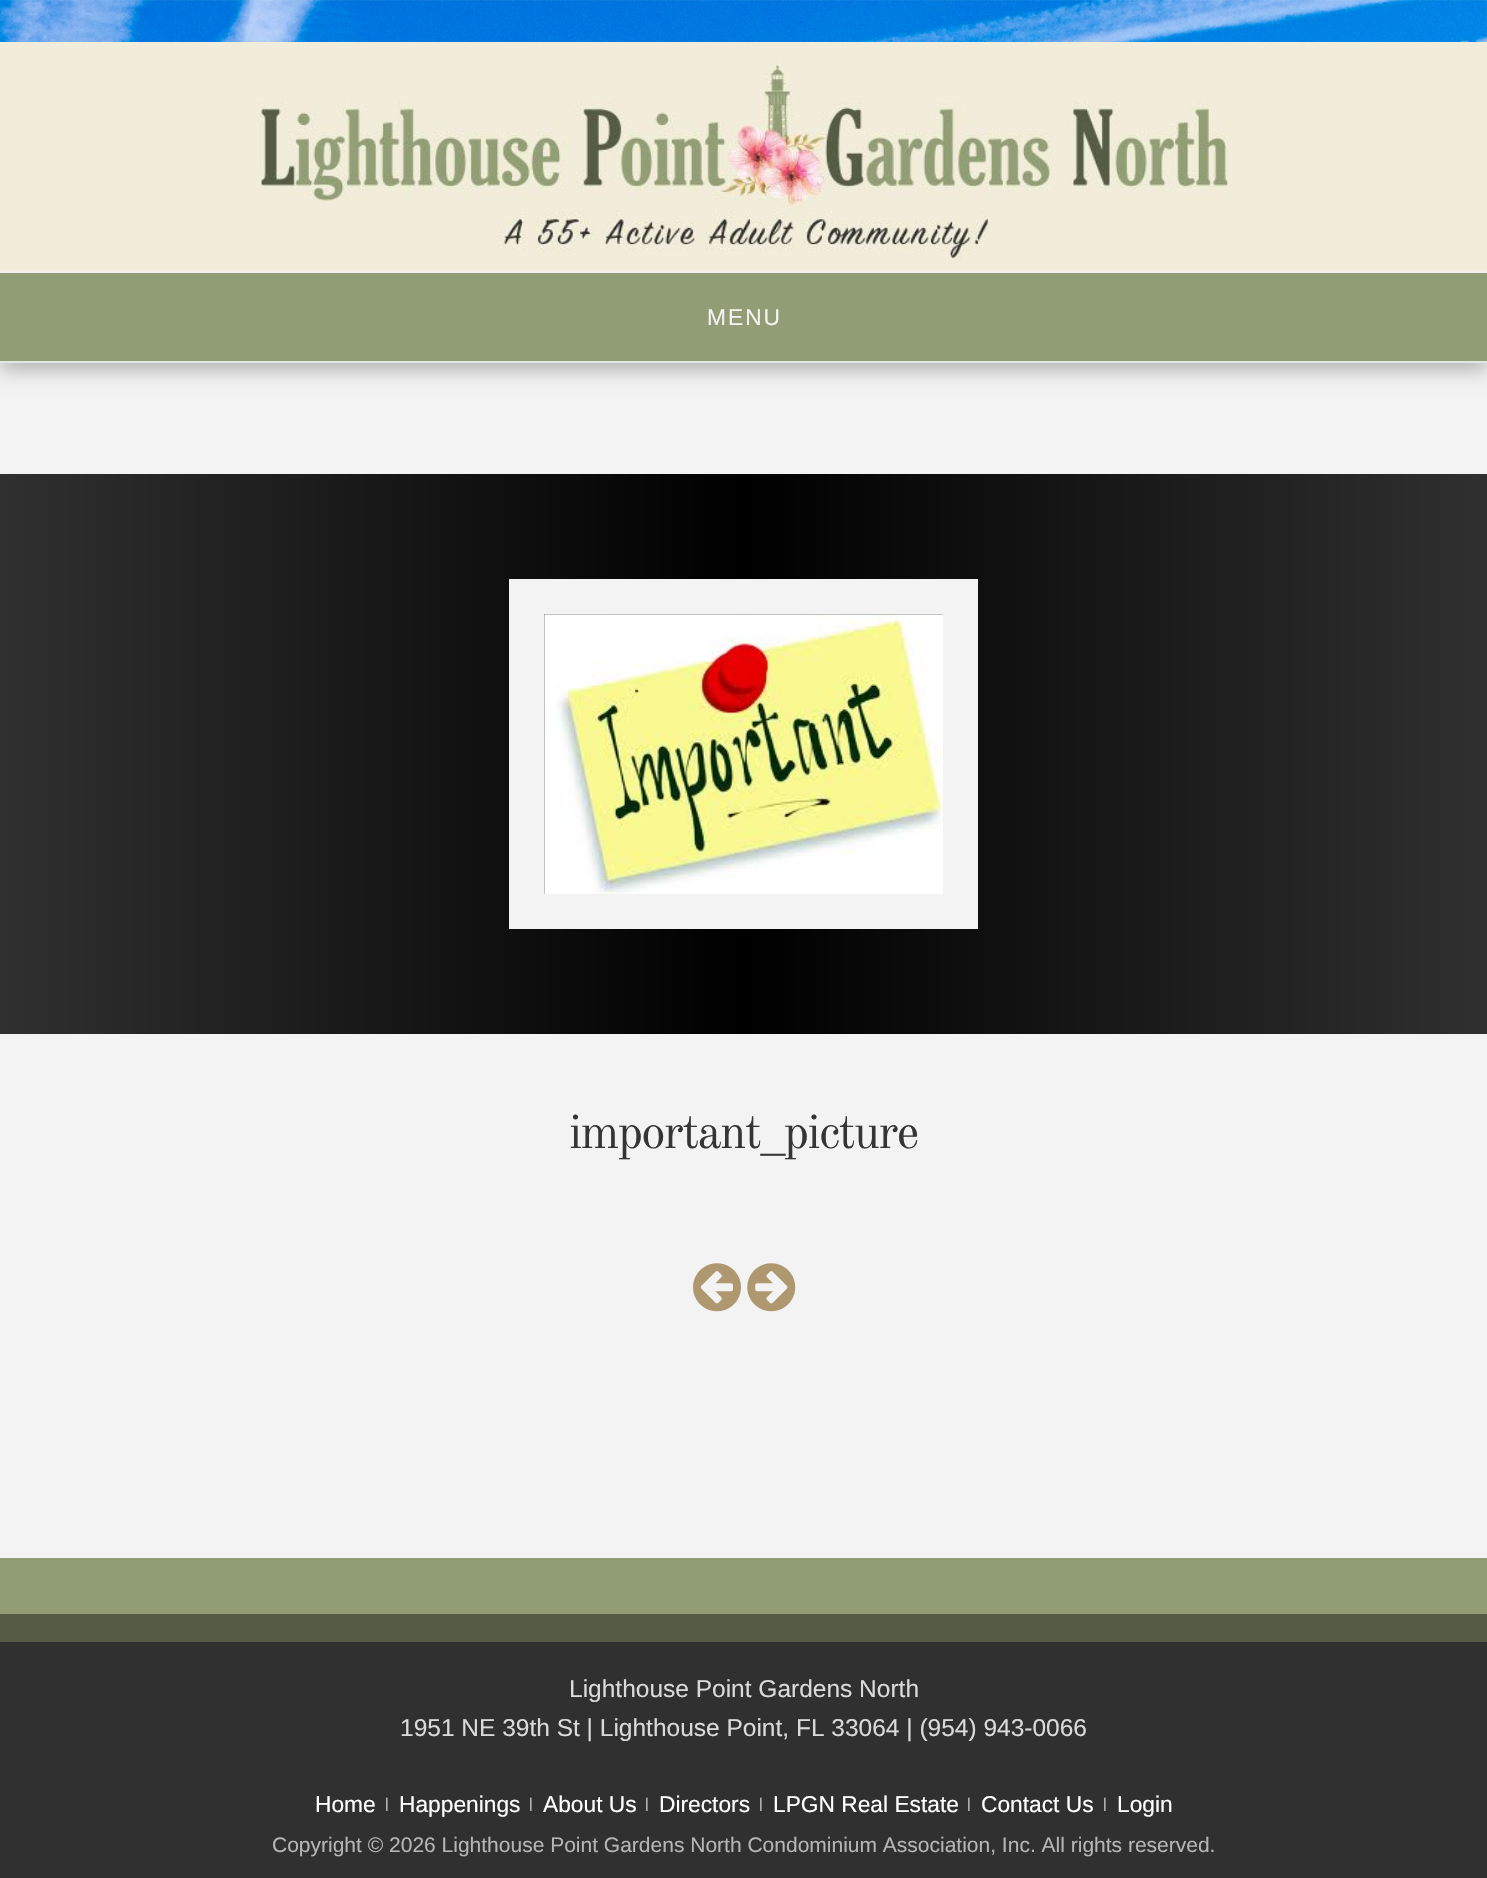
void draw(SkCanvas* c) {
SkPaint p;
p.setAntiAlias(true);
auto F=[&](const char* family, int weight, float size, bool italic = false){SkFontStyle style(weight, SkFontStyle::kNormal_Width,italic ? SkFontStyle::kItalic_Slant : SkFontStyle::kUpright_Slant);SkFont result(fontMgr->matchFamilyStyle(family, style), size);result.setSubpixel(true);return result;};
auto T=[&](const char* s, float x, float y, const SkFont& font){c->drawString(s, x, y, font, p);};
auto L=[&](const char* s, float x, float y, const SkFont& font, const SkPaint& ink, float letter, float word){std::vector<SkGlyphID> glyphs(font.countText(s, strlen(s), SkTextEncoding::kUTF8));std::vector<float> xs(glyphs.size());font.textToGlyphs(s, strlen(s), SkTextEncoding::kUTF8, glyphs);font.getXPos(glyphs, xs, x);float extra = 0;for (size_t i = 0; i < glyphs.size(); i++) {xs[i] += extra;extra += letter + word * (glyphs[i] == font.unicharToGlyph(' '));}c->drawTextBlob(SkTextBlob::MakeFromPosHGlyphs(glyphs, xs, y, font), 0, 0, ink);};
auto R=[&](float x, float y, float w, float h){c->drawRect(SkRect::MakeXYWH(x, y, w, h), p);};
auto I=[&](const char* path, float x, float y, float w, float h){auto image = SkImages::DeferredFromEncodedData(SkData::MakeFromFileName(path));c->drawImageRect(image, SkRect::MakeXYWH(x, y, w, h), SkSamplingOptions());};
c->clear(0xffffffff);
I("1.png",0,0,1487,42);
p.setColor(0xfff3f3f3);
R(0,363,1487,1195);
p.setColor(0x40000000);
p.setMaskFilter(SkMaskFilter::MakeBlur(kNormal_SkBlurStyle, 9));
c->drawRect(SkRect::MakeXYWH(0,280,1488,91),p);
p.setMaskFilter(nullptr);
p.setColor(0xffefefef);
R(0,271,1487,2);
I("2.png",0,42,1487,230);
p.setColor(0xffe5e5e5);
R(0,361,1487,2);
p.setColor(0xff919d74);
R(0,273,1487,88);
auto f1 = F("Liberation Sans",400,22.75);
p.setColor(0xfff3f3f3);
L("MENU",707,325,f1,p,2,0);
{
const SkColor colors[] = {0xff303030,0xff000000,0xff303030};
const float stops[] = {0,.5,1};
const SkPoint ends[] = {{0,754}, {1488,754}};
p.setShader(SkGradientShader::MakeLinear(ends, colors, stops, 3, SkTileMode::kClamp));
p.setAlpha(255);
}
R(0,474,1487,560);
p.setStroke(true);
p.setStrokeWidth(35);
p.setShader(nullptr);
p.setColor(0xfff3f3f3);
c->drawRect(SkRect::MakeXYWH(526.5,596.5,434,315),p);
I("3.png",544,614,399,280);
auto f2 = F("Old Standard TT",400,49);
p.setStroke(false);
p.setColor(0xff353535);
L("important_picture",569,1148,f2,p,-1.75,0);
I("4.png",693,1263,48,49);
I("5.png",747,1263,49,49);
p.setColor(0xff919d74);
R(0,1558,1487,56);
p.setColor(0xff555c43);
R(0,1614,1487,28);
p.setColor(0xff303030);
R(0,1642,1487,236);
auto f3 = F("Liberation Sans",400,24.5);
p.setColor(0xffdadada);
T("Lighthouse Point Gardens North",569,1697,f3);
T("1951 NE 39th St | Lighthouse Point, FL 33064 | (954) 943-0066",400,1736,f3);
p.setColor(0xffffffff);
T("Home",315,1812,f1);
auto f4 = F("Liberation Sans",400,14);
p.setColor(0xffcccccc);
T("|",385,1808,f4);
p.setColor(0xffffffff);
T("Happenings",399,1812,f1);
p.setColor(0xffcccccc);
T("|",529,1808,f4);
p.setColor(0xffffffff);
T("About Us",543,1812,f1);
p.setColor(0xffcccccc);
T("|",645,1808,f4);
p.setColor(0xffffffff);
T("Directors",659,1812,f1);
p.setColor(0xffcccccc);
T("|",759,1808,f4);
p.setColor(0xffffffff);
T("LPGN Real Estate",773,1812,f1);
p.setColor(0xffcccccc);
T("|",967,1808,f4);
p.setColor(0xffffffff);
T("Contact Us",981,1812,f1);
p.setColor(0xffcccccc);
T("|",1103,1808,f4);
p.setColor(0xffffffff);
T("Login",1117,1812,f1);
auto f5 = F("Liberation Sans",400,21);
p.setColor(0xffb5b5b5);
T("Copyright © 2026 Lighthouse Point Gardens North Condominium Association, Inc. All rights reserved.",272,1852,f5);
}
